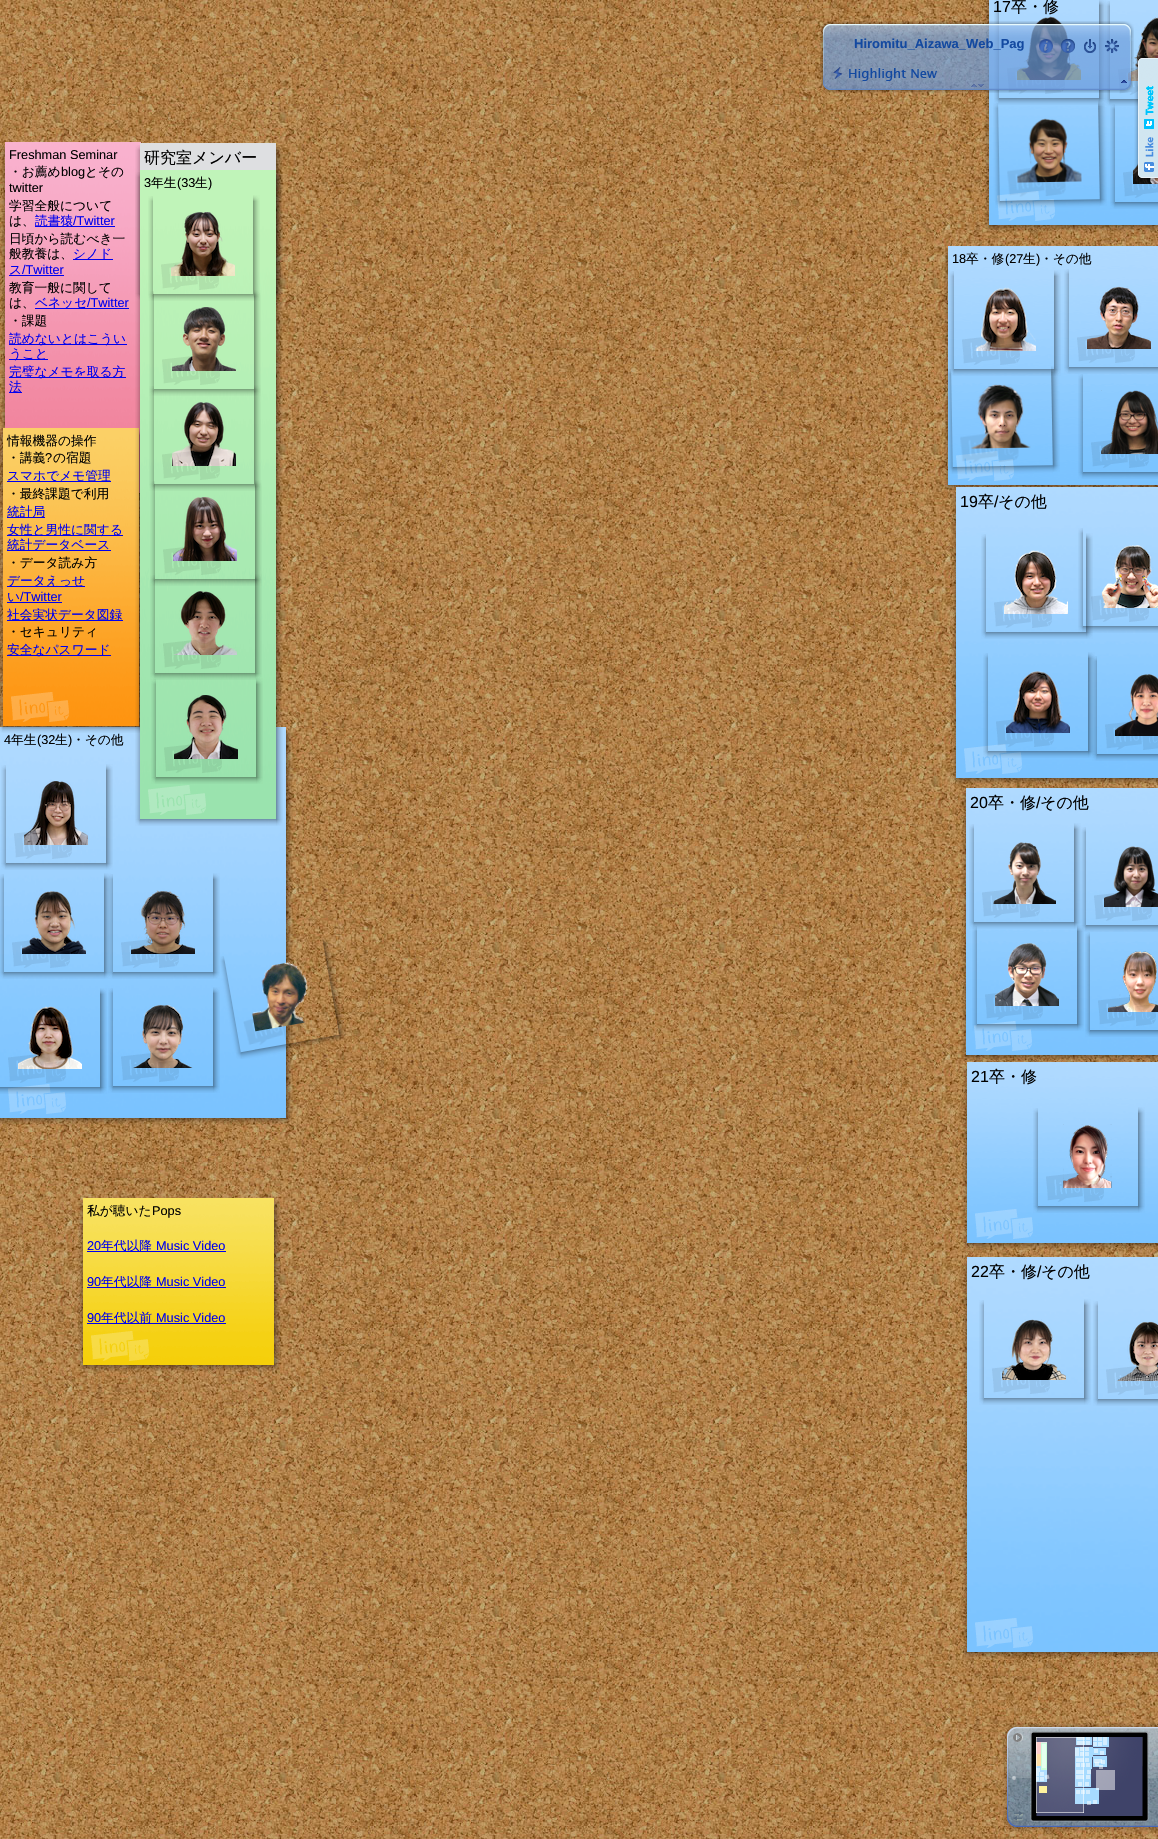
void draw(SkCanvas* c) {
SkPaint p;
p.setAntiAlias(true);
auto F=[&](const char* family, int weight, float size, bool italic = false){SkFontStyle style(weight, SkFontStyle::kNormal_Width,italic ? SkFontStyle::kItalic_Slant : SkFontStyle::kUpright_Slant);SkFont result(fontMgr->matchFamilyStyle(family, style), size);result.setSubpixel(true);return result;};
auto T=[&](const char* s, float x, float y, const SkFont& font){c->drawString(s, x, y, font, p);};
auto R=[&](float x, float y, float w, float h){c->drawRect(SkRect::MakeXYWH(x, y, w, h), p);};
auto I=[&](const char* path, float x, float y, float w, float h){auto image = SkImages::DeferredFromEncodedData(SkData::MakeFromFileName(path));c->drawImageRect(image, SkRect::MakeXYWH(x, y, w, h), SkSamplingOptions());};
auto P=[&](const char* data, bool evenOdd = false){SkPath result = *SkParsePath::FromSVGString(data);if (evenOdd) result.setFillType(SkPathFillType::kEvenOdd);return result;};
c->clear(0xffffffff);
I("1.png",0,0,1158,1839);
I("2.png",984,0,5,225);
I("3.png",989,0,169,225);
I("4.png",984,225,5,6);
I("5.png",989,225,169,7);
auto f1 = F("Liberation Sans",400,16);
p.setColor(0xff000000);
T("17",993,12,f1);
auto f2 = F("WenQuanYi Zen Hei",500,16);
T("卒・修",1011,12,f2);
I("6.png",997,191,58,30);
I("7.png",994,0,5,6);
I("8.png",1099,0,7,6);
I("9.png",994,6,5,92);
I("10.png",1017,16,64,64);
I("11.png",1099,6,7,92);
I("12.png",994,98,5,7);
I("13.png",999,98,100,7);
I("14.png",1099,98,7,7);
I("15.png",1007,64,58,30);
I("16.png",1105,1,5,6);
I("17.png",1105,7,5,92);
I("18.png",1128,17,30,64);
I("19.png",1105,99,5,7);
I("43.png",1110,104,5,6);
I("20.png",1110,99,28,7);
I("21.png",1118,67,20,28);
I("22.png",0,144,5,6);
I("23.png",5,142,136,351);
I("24.png",0,150,5,343);
I("25.png",0,493,3,5);
I("26.png",139,493,1,7);
auto f3 = F("Liberation Sans",400,12.75);
T("Freshman Seminar",9,159,f3);
auto f4 = F("WenQuanYi Zen Hei",500,12.75);
T("・お薦め",9,176,f4);
T("blog",61,176,f3);
T("とその",85,176,f4);
T("twitter",9,192,f3);
T("学習全般について",9,210,f4);
T("は、",9,225,f4);
p.setColor(0xff0000ee);
R(35,226,80,1);
T("読書猿",35,225,f4);
T("/Twitter",73,225,f3);
p.setColor(0xff000000);
T("日頃から読むべき一",9,243,f4);
T("般教養は、",9,258,f4);
p.setColor(0xff0000ee);
R(73,259,40,1);
T("シノド",73,258,f4);
T("ス",9,274,f4);
R(9,275,55,1);
T("/Twitter",22,274,f3);
p.setColor(0xff000000);
T("教育一般に関して",9,292,f4);
T("は、",9,307,f4);
p.setColor(0xff0000ee);
R(35,308,94,1);
T("ベネッセ",35,307,f4);
T("/Twitter",87,307,f3);
p.setColor(0xff000000);
T("・課題",9,325,f4);
p.setColor(0xff0000ee);
R(9,344,118,1);
T("読めないとはこうい",9,343,f4);
R(9,359,39,1);
T("うこと",9,358,f4);
R(9,377,117,1);
T("完璧なメモを取る方",9,376,f4);
R(9,392,13,1);
T("法",9,391,f4);
I("27.png",135,145,5,6);
I("28.png",140,143,136,27);
I("29.png",276,144,7,7);
I("30.png",135,151,5,142);
I("31.png",276,151,7,142);
I("32.png",135,293,5,7);
I("33.png",276,293,7,7);
p.setColor(0xff000000);
T("研究室メンバー",144,163,f2);
I("34.png",993,103,6,6);
I("35.png",1098,100,7,8);
I("36.png",993,109,7,92);
I("37.png",1017,118,65,65);
I("38.png",1098,107,9,93);
I("39.png",995,201,5,7);
I("41.png",1099,199,8,7);
I("40.png",999,199,101,9);
I("42.png",1007,166,59,31);
I("44.png",1110,110,5,92);
I("45.png",1133,163,25,21);
I("46.png",1110,202,5,7);
I("47.png",1115,202,43,7);
I("48.png",1123,171,35,27);
I("49.png",135,172,5,6);
I("168.png",0,727,286,391);
I("50.png",140,170,136,649);
I("51.png",276,172,7,6);
I("98.png",3,428,136,298);
I("99.png",139,429,1,7);
I("100.png",139,436,1,290);
I("102.png",3,726,136,7);
I("103.png",139,726,1,7);
I("52.png",135,178,5,641);
I("53.png",276,178,7,641);
I("54.png",135,819,5,7);
I("55.png",140,819,136,7);
I("56.png",276,819,7,7);
T("3",144,187,f3);
T("年生",151,187,f4);
T("(33",177,187,f3);
T("生",195,187,f4);
T(")",208,187,f3);
I("57.png",148,785,58,30);
I("58.png",148,196,5,6);
I("59.png",253,195,7,7);
I("60.png",148,202,5,92);
I("61.png",171,212,64,64);
I("62.png",253,202,7,92);
I("63.png",148,294,5,7);
I("64.png",153,294,100,7);
I("65.png",253,294,7,7);
I("66.png",161,260,58,30);
I("67.png",943,248,5,6);
I("68.png",948,246,210,239);
I("69.png",943,254,5,231);
I("70.png",943,485,5,7);
I("71.png",948,485,210,7);
T("18",952,263,f3);
T("卒・修",966,263,f4);
T("(27",1005,263,f3);
T("生",1023,263,f4);
T(")",1036,263,f3);
T("・その他",1040,263,f4);
I("72.png",956,451,58,30);
I("73.png",149,291,5,6);
I("74.png",254,290,7,7);
I("75.png",149,297,5,92);
I("76.png",172,307,64,64);
I("77.png",254,297,7,92);
I("78.png",149,389,5,7);
I("79.png",154,389,100,7);
I("80.png",254,389,7,7);
I("81.png",162,355,58,30);
I("82.png",949,271,5,6);
I("83.png",1054,270,7,7);
I("84.png",949,277,5,92);
I("85.png",974,287,62,64);
I("115.png",1051,366,7,8);
I("86.png",1054,277,7,92);
I("114.png",947,369,5,6);
I("116.png",947,375,6,92);
I("87.png",949,369,5,7);
I("118.png",1051,373,9,93);
I("88.png",954,369,100,7);
I("89.png",1054,369,7,7);
I("90.png",962,335,58,30);
I("91.png",1064,269,5,6);
I("92.png",1064,275,5,92);
I("93.png",1087,286,64,63);
I("94.png",1064,367,5,7);
I("95.png",1069,367,89,7);
I("96.png",1077,333,58,30);
I("97.png",0,430,3,6);
p.setColor(0x24000000);
R(0,436,3,290);
I("101.png",0,726,3,7);
p.setColor(0xff000000);
T("情報機器の操作",7,445,f4);
T("・講義",7,462,f4);
T("?",45,462,f3);
T("の宿題",53,462,f4);
p.setColor(0xff0000ee);
R(7,481,104,1);
T("スマホでメモ管理",7,480,f4);
p.setColor(0xff000000);
T("・最終課題で利用",7,498,f4);
p.setColor(0xff0000ee);
R(7,517,38,1);
T("統計局",7,516,f4);
R(7,535,116,1);
T("女性と男性に関する",7,534,f4);
R(7,550,104,1);
T("統計データベース",7,549,f4);
p.setColor(0xff000000);
T("・データ読み方",7,567,f4);
p.setColor(0xff0000ee);
R(7,586,78,1);
T("データえっせ",7,585,f4);
T("い",7,601,f4);
R(7,602,55,1);
T("/Twitter",20,601,f3);
R(7,620,116,1);
T("社会実状データ図録",7,619,f4);
p.setColor(0xff000000);
T("・セキュリティ",7,636,f4);
p.setColor(0xff0000ee);
R(7,655,104,1);
T("安全なパスワード",7,654,f4);
I("104.png",11,692,58,30);
I("105.png",149,386,5,6);
I("106.png",254,385,7,7);
I("107.png",149,392,5,92);
I("108.png",172,402,64,64);
I("109.png",254,392,7,92);
I("110.png",149,484,5,7);
I("111.png",154,484,100,7);
I("112.png",254,484,7,7);
I("113.png",162,450,58,30);
I("117.png",970,384,61,65);
I("119.png",948,467,5,7);
I("121.png",1052,465,8,7);
I("120.png",952,465,101,9);
I("122.png",960,432,59,31);
I("123.png",1078,374,5,6);
I("124.png",1078,380,5,92);
I("125.png",1101,390,57,64);
I("126.png",1078,472,5,7);
I("127.png",1083,472,75,7);
I("128.png",1091,438,58,30);
I("129.png",150,481,5,6);
I("130.png",255,480,7,7);
I("131.png",150,487,5,92);
I("132.png",173,497,64,64);
I("133.png",255,487,7,92);
I("134.png",150,579,5,7);
I("135.png",155,579,100,7);
I("136.png",255,579,7,7);
I("137.png",163,545,58,30);
I("138.png",951,489,5,6);
I("139.png",956,487,202,291);
I("140.png",951,495,5,283);
I("141.png",951,778,5,6);
I("142.png",956,778,202,7);
p.setColor(0xff000000);
T("19",960,507,f1);
T("卒",978,507,f2);
T("/",994,507,f1);
T("その他",998,507,f2);
I("143.png",964,744,58,30);
I("144.png",150,575,5,6);
I("145.png",255,574,7,7);
I("146.png",150,581,5,92);
I("147.png",173,591,64,64);
I("148.png",255,581,7,92);
I("149.png",150,673,5,7);
I("150.png",155,673,100,7);
I("151.png",255,673,7,7);
I("152.png",163,639,58,30);
I("153.png",981,534,5,6);
I("154.png",1086,533,7,7);
I("155.png",981,540,5,92);
I("156.png",1004,550,64,64);
I("157.png",1086,540,7,92);
I("158.png",981,632,5,7);
I("159.png",986,632,100,7);
I("160.png",1086,632,7,7);
I("161.png",994,598,58,30);
I("162.png",1078,528,5,6);
I("163.png",1078,534,5,92);
I("164.png",1101,545,57,63);
I("165.png",1078,626,5,7);
I("166.png",1083,626,75,7);
I("167.png",1091,592,58,30);
I("169.png",286,728,7,7);
I("170.png",286,735,7,383);
I("171.png",0,1118,286,7);
I("172.png",286,1118,7,7);
T("4",4,744,f3);
T("年生",11,744,f4);
T("(32",37,744,f3);
T("生",55,744,f4);
T(")",68,744,f3);
T("・その他",72,744,f4);
I("173.png",8,1084,58,30);
I("174.png",151,679,5,6);
I("175.png",256,678,7,7);
I("176.png",151,685,5,92);
I("177.png",174,695,64,64);
I("178.png",256,685,7,92);
I("179.png",151,777,5,7);
I("180.png",156,777,100,7);
I("181.png",256,777,7,7);
I("182.png",164,743,58,30);
I("183.png",983,653,5,6);
I("184.png",1088,652,7,7);
I("185.png",983,659,5,92);
I("186.png",1006,671,64,62);
I("187.png",1088,659,7,92);
I("188.png",983,751,5,7);
I("189.png",988,751,100,7);
I("190.png",1088,751,7,7);
I("191.png",996,717,58,30);
I("192.png",1092,656,5,6);
I("193.png",1092,662,5,92);
I("194.png",1115,674,43,62);
I("195.png",1092,754,5,7);
I("196.png",1097,754,61,7);
I("197.png",1105,720,53,30);
I("198.png",1,765,5,6);
I("199.png",106,764,7,7);
I("200.png",1,771,5,92);
I("201.png",24,781,64,64);
I("202.png",106,771,7,92);
I("203.png",1,863,5,7);
I("204.png",6,863,100,7);
I("205.png",106,863,7,7);
I("206.png",14,829,58,30);
I("207.png",961,790,5,6);
I("208.png",966,788,192,267);
I("209.png",961,796,5,259);
I("210.png",961,1055,5,6);
I("211.png",966,1055,192,7);
T("20",970,808,f1);
T("卒・修",988,808,f2);
T("/",1036,808,f1);
T("その他",1040,808,f2);
I("212.png",974,1021,58,30);
I("213.png",0,874,4,6);
I("214.png",104,873,7,7);
I("215.png",0,880,4,92);
I("216.png",22,891,64,63);
I("217.png",104,880,7,92);
I("218.png",0,972,4,7);
I("219.png",4,972,100,7);
I("220.png",104,972,7,7);
I("221.png",12,938,58,30);
I("222.png",108,874,5,6);
I("223.png",213,873,7,7);
I("224.png",108,880,5,92);
I("225.png",131,890,64,64);
I("226.png",213,880,7,92);
I("227.png",108,972,5,7);
I("228.png",113,972,100,7);
I("229.png",213,972,7,7);
I("230.png",121,938,58,30);
I("231.png",969,824,5,6);
I("232.png",1074,823,7,7);
I("233.png",969,830,5,92);
I("234.png",993,842,63,62);
I("235.png",1074,830,7,92);
I("236.png",969,922,5,7);
I("237.png",974,922,100,7);
I("238.png",1074,922,7,7);
I("239.png",982,888,58,30);
I("240.png",1081,827,5,6);
I("241.png",1081,833,5,92);
I("242.png",1104,846,54,61);
I("271.png",1077,925,7,7);
I("243.png",1081,925,5,7);
I("244.png",1086,925,72,7);
I("245.png",1094,891,58,30);
I("246.png",100,988,7,7);
I("247.png",18,1006,64,63);
I("248.png",100,995,7,92);
I("249.png",0,1087,100,7);
I("250.png",100,1087,7,7);
I("251.png",8,1053,58,30);
I("252.png",108,988,5,6);
I("253.png",213,987,7,7);
I("254.png",108,994,5,92);
I("255.png",133,1004,60,64);
I("256.png",213,994,7,92);
I("257.png",108,1086,5,7);
I("258.png",113,1086,100,7);
I("259.png",213,1086,7,7);
I("260.png",121,1052,58,30);
I("261.png",322,937,8,8);
I("262.png",220,956,5,6);
I("263.png",323,943,23,92);
I("264.png",220,961,21,92);
I("265.png",252,962,67,70);
I("267.png",339,1034,7,7);
I("268.png",236,1052,6,7);
I("266.png",240,1034,100,25);
I("269.png",243,1010,61,35);
I("270.png",972,926,5,6);
I("272.png",972,932,5,92);
I("273.png",995,943,64,63);
I("274.png",1077,932,7,92);
I("275.png",972,1024,5,7);
I("276.png",977,1024,100,7);
I("277.png",1077,1024,7,7);
I("278.png",985,990,58,30);
I("123.png",1085,932,5,6);
I("279.png",1085,938,5,92);
I("280.png",1108,951,50,61);
I("281.png",1085,1030,5,7);
I("282.png",1090,1030,68,7);
I("283.png",1098,996,58,30);
I("284.png",962,1064,5,6);
I("285.png",967,1062,191,181);
I("286.png",962,1070,5,173);
I("287.png",962,1243,5,7);
I("288.png",967,1243,191,7);
T("21",971,1082,f1);
T("卒・修",989,1082,f2);
I("289.png",975,1209,58,30);
I("290.png",1033,1108,5,6);
I("291.png",1138,1107,7,7);
I("292.png",1033,1114,5,92);
I("293.png",1063,1124,49,64);
I("294.png",1138,1114,7,92);
I("295.png",1033,1206,5,7);
I("296.png",1038,1206,100,7);
I("297.png",1138,1206,7,7);
I("298.png",1046,1172,58,30);
I("299.png",78,1200,5,6);
I("300.png",83,1198,191,167);
I("301.png",274,1199,7,7);
I("302.png",78,1206,5,159);
I("303.png",274,1206,7,159);
I("304.png",79,1365,4,7);
I("305.png",83,1365,191,7);
I("306.png",274,1365,7,7);
T("私が聴いた",87,1215,f4);
T("Pops",152,1215,f3);
p.setColor(0xff0000ee);
T("20",87,1250,f3);
R(87,1251,139,1);
T("年代以降",101,1250,f4);
T("Music Video",156,1250,f3);
T("90",87,1286,f3);
R(87,1287,139,1);
T("年代以降",101,1286,f4);
T("Music Video",156,1286,f3);
T("90",87,1322,f3);
R(87,1323,139,1);
T("年代以前",101,1322,f4);
T("Music Video",156,1322,f3);
I("307.png",91,1331,58,30);
I("308.png",962,1259,5,6);
I("309.png",967,1257,191,395);
I("310.png",962,1265,5,387);
I("311.png",962,1652,5,7);
I("312.png",967,1652,191,7);
p.setColor(0xff000000);
T("22",971,1277,f1);
T("卒・修",989,1277,f2);
T("/",1037,1277,f1);
T("その他",1041,1277,f2);
I("313.png",975,1618,58,30);
I("82.png",979,1300,5,6);
I("314.png",1084,1299,7,7);
I("315.png",979,1306,5,92);
I("316.png",1002,1319,64,61);
I("317.png",1084,1306,7,92);
I("318.png",979,1398,5,7);
I("319.png",984,1398,100,7);
I("320.png",1084,1398,7,7);
I("321.png",992,1364,58,30);
I("82.png",1093,1301,5,6);
I("322.png",1093,1307,5,92);
I("323.png",1117,1321,41,60);
I("324.png",1093,1399,5,7);
I("325.png",1098,1399,60,7);
I("326.png",1106,1365,52,30);
I("327.png",820,21,314,20);
I("328.png",820,41,314,30);
I("329.png",820,71,314,22);
auto f5 = F("Liberation Sans",700,13);
p.setColor(0xff1349a0);
T("Hiromitu_Aizawa_Web_Pag",854,48,f5);
I("330.png",1039,39,14,14);
I("331.png",1061,39,14,14);
I("332.png",1084,39,12,14);
I("333.png",1105,39,14,14);
I("334.png",833,67,104,14);
I("335.png",1121,80,6,3);
I("336.png",971,84,13,3);
I("337.png",1134,55,24,127);
I("338.png",1002,1723,25,109);
I("339.png",1013,1733,10,9);
I("340.png",1013,1811,10,10);
I("341.png",1027,1723,131,109);
I("342.png",1030,1731,119,91);
p.setColor(0xffa6dbff);
R(1076,1737,16,8);
p.setColor(0xffd3edff);
R(1077,1737,8,3);
p.setColor(0xffffc7c4);
R(1036,1742,5,14);
p.setColor(0xffe4e4e4);
R(1041,1742,6,1);
p.setColor(0xffd3edff);
c->drawPath(P("M1077 1741h4v4h-4z"),p);
R(1081,1741,4,4);
p.setColor(0xffa6dbff);
R(1036,1766,11,16);
p.setColor(0xffc4ffd8);
R(1041,1743,6,27);
p.setColor(0xffe2ffec);
R(1042,1744,4,24);
p.setColor(0xffa6dbff);
R(1075,1747,18,10);
p.setColor(0xffd3edff);
R(1075,1748,4,4);
R(1080,1747,4,4);
p.setColor(0xffffdb9b);
R(1036,1754,5,12);
p.setColor(0xffd3edff);
c->drawPath(P("M1075 1752h4v4h-4z"),p);
R(1080,1752,4,4);
p.setColor(0xffa6dbff);
R(1075,1757,17,12);
p.setColor(0xffd3edff);
R(1076,1758,8,4);
R(1076,1763,4,4);
R(1081,1763,4,4);
R(1036,1768,4,4);
p.setColor(0xffa6dbff);
R(1075,1769,16,18);
p.setColor(0xffd3edff);
R(1036,1772,3,4);
R(1040,1772,4,4);
p.setColor(0x80ffffff);
c->drawPath(P("M1044.5 1775.5l4-1l1 4l-4 1z"),p);
p.setColor(0xffd3edff);
R(1076,1770,8,4);
R(1036,1777,3,4);
R(1040,1777,4,4);
R(1076,1775,8,4);
R(1078,1782,4,4);
p.setColor(0xfffff293);
R(1039,1786,8,7);
p.setColor(0xffa6dbff);
R(1075,1788,24,16);
p.setColor(0xffd3edff);
R(1076,1790,4,4);
R(1081,1790,4,4);
p.setColor(0x1affffff);
R(1036,1737,48,76);
p.setColor(0x8cffffff);
R(1036,1737,1,76);
R(1036,1737,48,1);
R(1083,1737,1,76);
R(1036,1812,48,1);
p.setColor(0xffd3edff);
R(1086,1737,4,3);
p.setColor(0xffa6dbff);
R(1093,1737,16,10);
p.setColor(0xffd3edff);
R(1086,1741,4,4);
R(1093,1737,4,4);
R(1098,1737,4,4);
R(1103,1737,4,8);
R(1093,1742,4,4);
R(1098,1742,4,4);
c->drawPath(P("M1085 1747h4v4h-4z"),p);
p.setColor(0xffa6dbff);
R(1093,1748,13,7);
p.setColor(0xffd3edff);
R(1085,1752,4,4);
c->drawPath(P("M1094 1749h4v4h-4z"),p);
R(1100,1751,4,4);
p.setColor(0xffa6dbff);
R(1093,1756,14,11);
p.setColor(0xffd3edff);
R(1085,1758,4,4);
R(1094,1759,8,4);
p.setColor(0x80ffffff);
R(1101,1760,4,4);
p.setColor(0xffd3edff);
c->drawPath(P("M1086 1763h4v4h-4z"),p);
p.setColor(0x80ffffff);
R(1095,1762,4,4);
R(1099,1765,4,4);
p.setColor(0xffd3edff);
R(1087,1770,4,4);
p.setColor(0x80ffffff);
R(1096,1770,19,20);
p.setColor(0xffd3edff);
R(1086,1775,4,4);
R(1085,1782,4,4);
c->drawPath(P("M1086 1790h4v4h-4z"),p);
p.setColor(0x80ffffff);
R(1087,1801,4,4);
p.setColor(0xffd3edff);
R(1093,1800,4,4);
}
